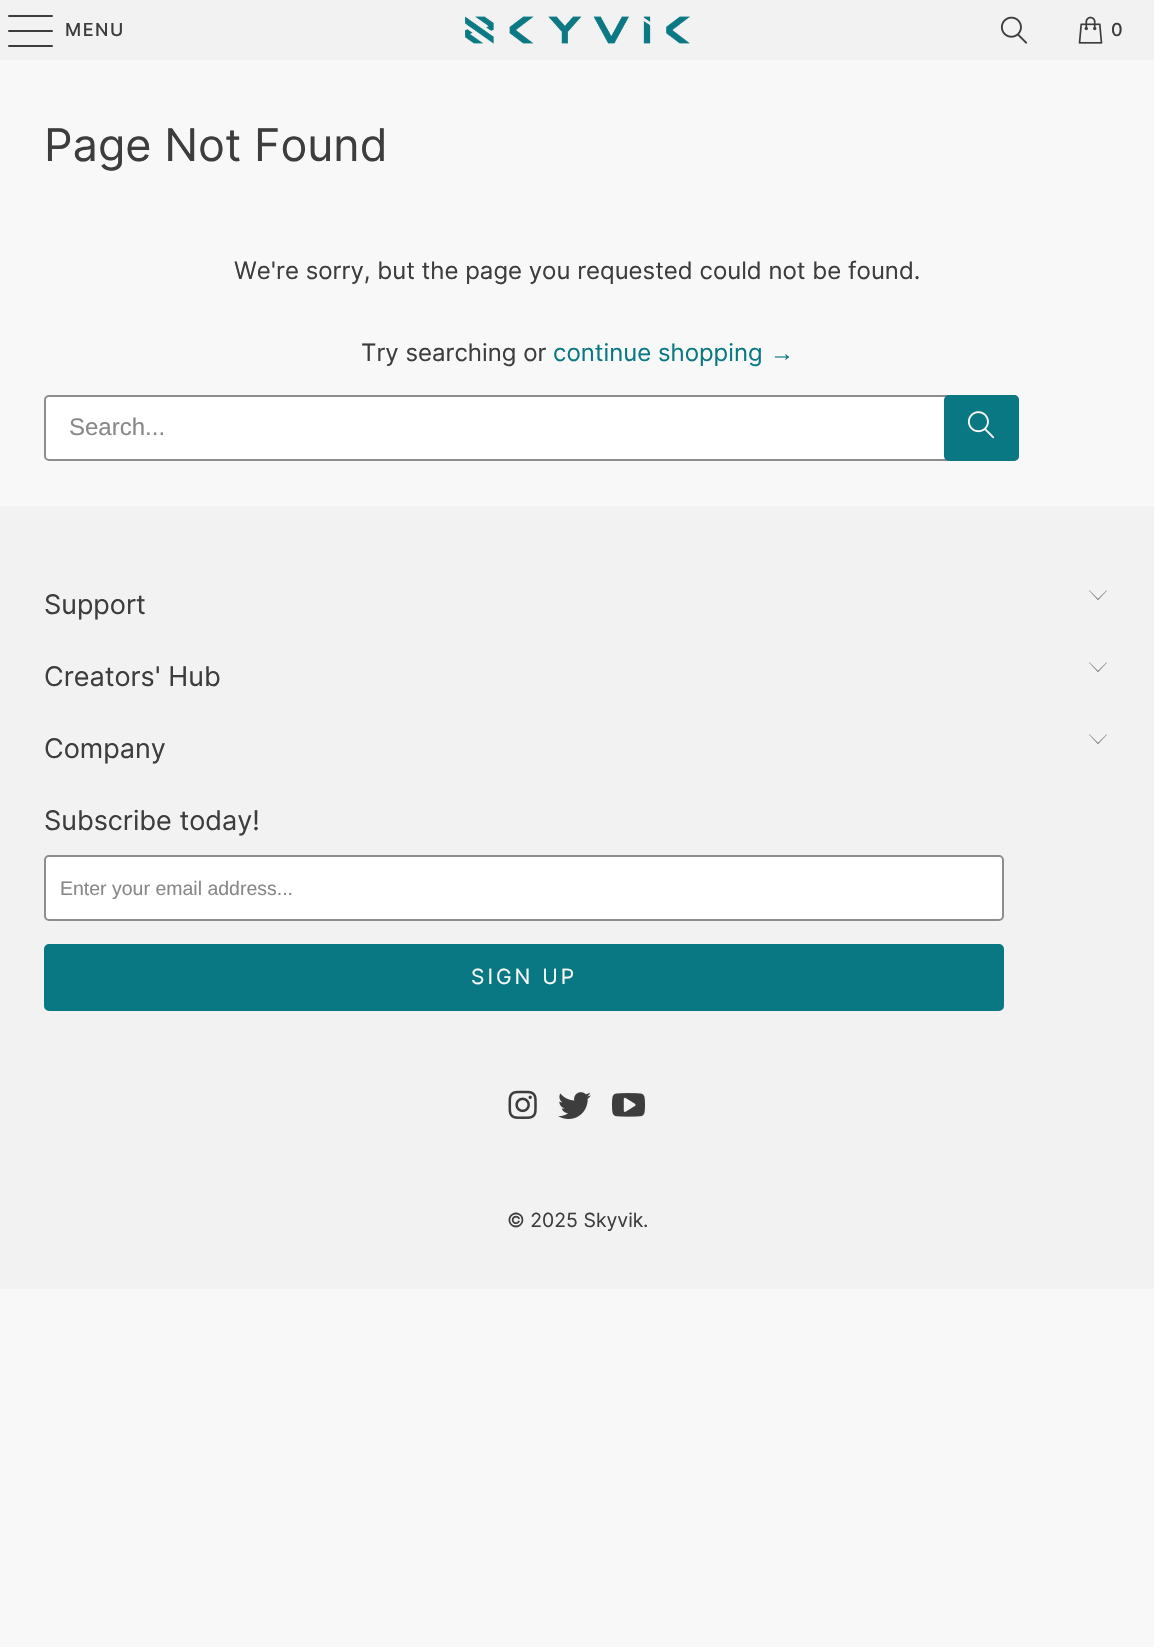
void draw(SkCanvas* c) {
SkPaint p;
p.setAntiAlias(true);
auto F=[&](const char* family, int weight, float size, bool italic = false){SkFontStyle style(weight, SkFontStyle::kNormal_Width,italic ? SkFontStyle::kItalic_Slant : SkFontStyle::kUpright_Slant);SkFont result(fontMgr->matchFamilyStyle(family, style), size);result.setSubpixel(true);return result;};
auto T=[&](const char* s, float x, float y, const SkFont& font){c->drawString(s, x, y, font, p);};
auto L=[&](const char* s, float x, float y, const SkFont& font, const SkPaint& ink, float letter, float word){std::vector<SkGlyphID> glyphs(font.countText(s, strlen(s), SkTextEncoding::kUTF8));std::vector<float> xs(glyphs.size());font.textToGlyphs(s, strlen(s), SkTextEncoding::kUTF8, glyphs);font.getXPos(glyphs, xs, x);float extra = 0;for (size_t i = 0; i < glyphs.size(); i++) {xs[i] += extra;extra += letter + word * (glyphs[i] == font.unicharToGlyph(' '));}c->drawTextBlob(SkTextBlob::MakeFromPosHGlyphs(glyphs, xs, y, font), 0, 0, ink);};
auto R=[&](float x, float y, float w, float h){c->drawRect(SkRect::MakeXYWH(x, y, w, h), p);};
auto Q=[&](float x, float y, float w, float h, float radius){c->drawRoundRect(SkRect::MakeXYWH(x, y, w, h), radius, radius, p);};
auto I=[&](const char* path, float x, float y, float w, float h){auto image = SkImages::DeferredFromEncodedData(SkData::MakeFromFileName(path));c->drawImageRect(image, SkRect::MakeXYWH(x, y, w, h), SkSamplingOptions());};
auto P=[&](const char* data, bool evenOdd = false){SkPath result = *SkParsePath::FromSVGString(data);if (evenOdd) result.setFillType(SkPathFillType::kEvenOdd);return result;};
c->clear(0xfff8f8f8);
p.setColor(0xfff2f2f2);
R(0,0,1154,60);
p.setColor(0xff3d3d3d);
Q(8,15,45,2,1);
Q(8,30,45,2,1);
Q(8,45,45,2,1);
auto f1 = F("Inter",500,18);
L("MENU",65,36,f1,p,1.5,0);
I("1.png",465,16,225,28);
I("2.png",1000,16,28,28);
I("3.png",1078,16,25,28);
L("0",1111,36,f1,p,1.5,0);
auto f2 = F("Inter",400,45);
T("Page Not Found",44,161,f2);
auto f3 = F("Inter",400,24);
T("We're sorry, but the page you requested could not be found.",234,279,f3);
T("Try searching or",361,361,f3);
p.setColor(0xff0a7882);
T("continue shopping",553,361,f3);
auto f4 = F("Liberation Sans",400,24);
T("→",770,361,f4);
p.setColor(0xffffffff);
c->drawRoundRect(SkRect::MakeXYWH(45,396,973,64),4,4,p);
p.setStroke(true);
p.setStrokeWidth(2);
p.setColor(0xff8d8d8d);
c->drawRoundRect(SkRect::MakeXYWH(45,396,973,64),4,4,p);
p.setStroke(false);
p.setColor(0xff888888);
T("Search...",69,435,f4);
p.setColor(0xff0a7882);
Q(944,395,75,66,5);
I("4.png",967,411,28,28);
p.setColor(0xfff2f2f2);
R(0,506,1154,783);
auto f5 = F("Inter",400,27);
p.setColor(0xff3d3d3d);
T("Support",44,614,f5);
c->drawPath(P("M1098 600l-9-9.5h.5l8.5 8.5l8.5-8.5h.5z"),p);
T("Creators' Hub",44,686,f5);
c->drawPath(P("M1098 672l-9-9.5h.5l8.5 8.5l8.5-8.5h.5z"),p);
T("Company",44,758,f5);
c->drawPath(P("M1098 744l-9-9.5h.5l8.5 8.5l8.5-8.5h.5z"),p);
T("Subscribe today!",44,830,f5);
p.setColor(0xffffffff);
c->drawRoundRect(SkRect::MakeXYWH(45,856,958,64),4,4,p);
p.setStroke(true);
p.setColor(0xff8d8d8d);
c->drawRoundRect(SkRect::MakeXYWH(45,856,958,64),4,4,p);
auto f6 = F("Liberation Sans",400,19.5);
p.setStroke(false);
p.setColor(0xff888888);
T("Enter your email address...",60,895,f6);
p.setColor(0xff0a7882);
c->drawRoundRect(SkRect::MakeXYWH(45,945,958,65),4,4,p);
p.setStroke(true);
c->drawRoundRect(SkRect::MakeXYWH(45,945,958,65),4,4,p);
auto f7 = F("Inter",400,21);
p.setStroke(false);
p.setColor(0xfff8f8f8);
L("SIGN UP",471,984,f7,p,3,0);
I("5.png",508,1090,29,29);
I("6.png",558,1092,33,27);
I("7.png",612,1093,33,24);
auto f8 = F("Inter",400,19.5);
p.setColor(0xff3d3d3d);
T("© 2025 Skyvik",507,1227,f8);
T(".",643,1227,f8);
}
